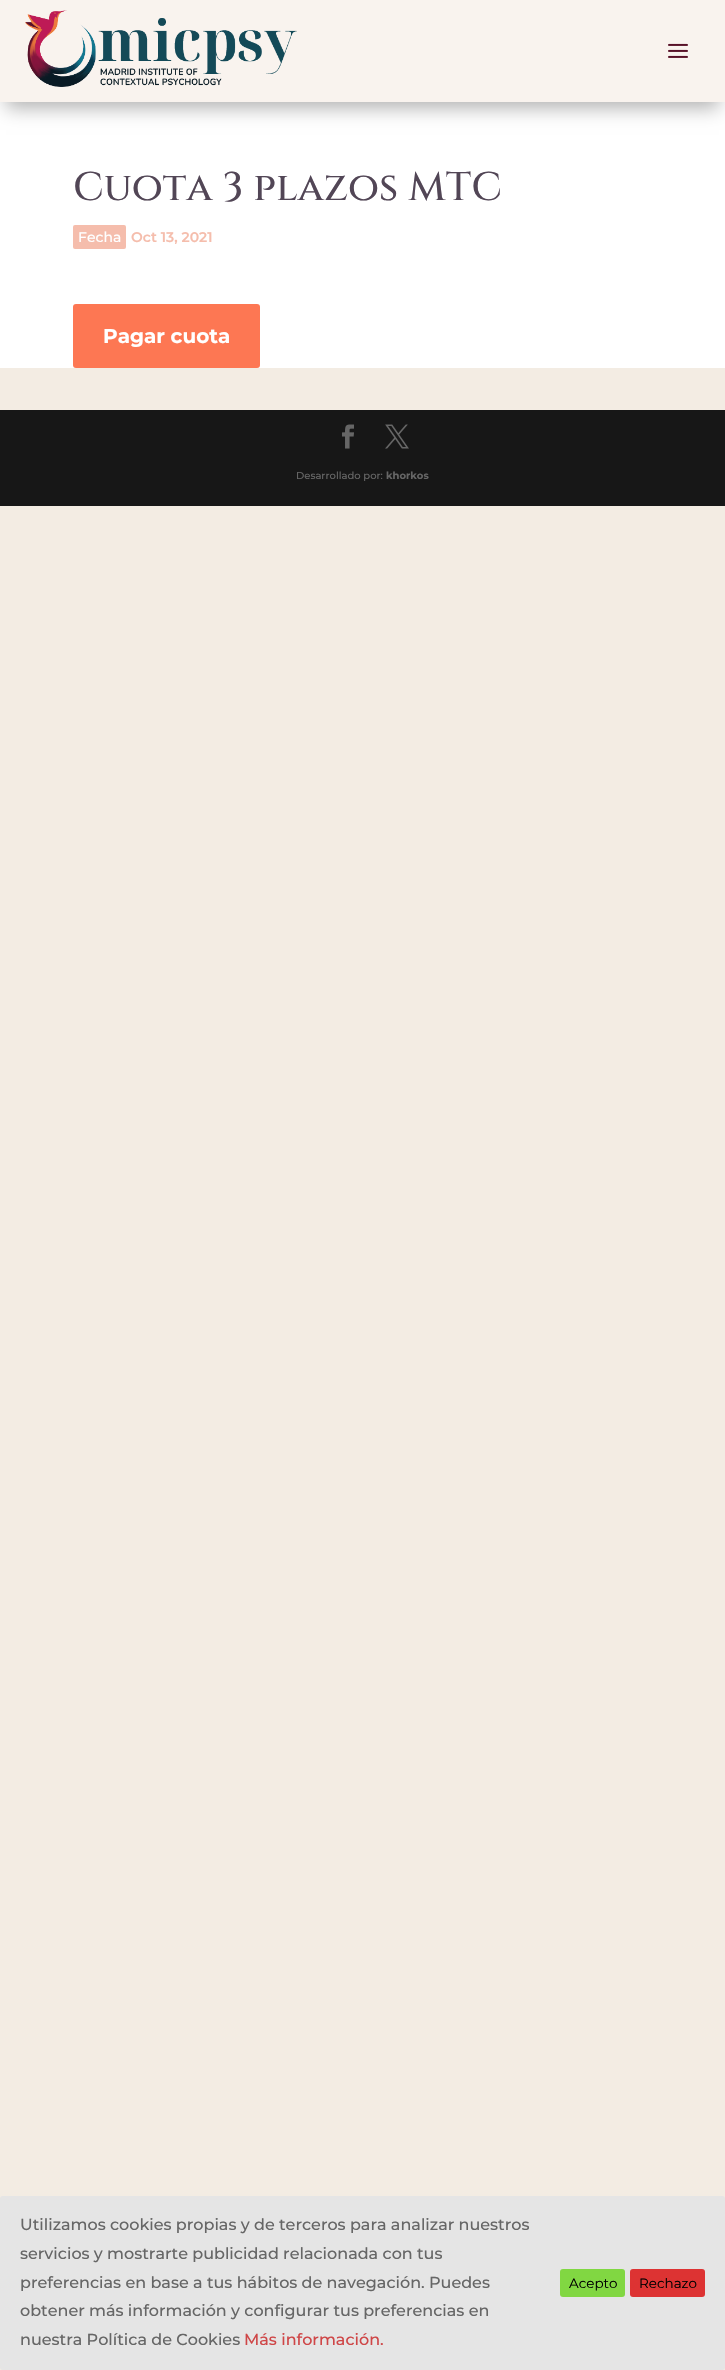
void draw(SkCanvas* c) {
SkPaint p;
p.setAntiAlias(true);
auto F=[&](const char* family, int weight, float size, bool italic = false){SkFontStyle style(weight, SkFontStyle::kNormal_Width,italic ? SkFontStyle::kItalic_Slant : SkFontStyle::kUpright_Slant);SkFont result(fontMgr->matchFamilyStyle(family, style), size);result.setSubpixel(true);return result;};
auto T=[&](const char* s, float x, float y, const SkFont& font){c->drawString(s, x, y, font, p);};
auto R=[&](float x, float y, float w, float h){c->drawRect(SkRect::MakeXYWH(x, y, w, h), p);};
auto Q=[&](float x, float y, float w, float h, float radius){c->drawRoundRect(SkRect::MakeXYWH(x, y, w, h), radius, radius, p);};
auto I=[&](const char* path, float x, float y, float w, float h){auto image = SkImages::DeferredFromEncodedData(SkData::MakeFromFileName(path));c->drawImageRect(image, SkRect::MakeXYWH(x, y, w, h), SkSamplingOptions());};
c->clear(0xfff3ece3);
p.setColor(0xffffffff);
R(0,102,725,266);
p.setColor(0x4d000000);
p.setMaskFilter(SkMaskFilter::MakeBlur(kNormal_SkBlurStyle, 9));
c->drawRect(SkRect::MakeXYWH(6,18,713,90),p);
p.setMaskFilter(nullptr);
p.setColor(0xfff9f3ee);
R(0,0,725,102);
I("1.png",25,10,272,77);
I("2.png",668,43,20,15);
auto f1 = F("Cinzel",500,40);
p.setColor(0xff524656);
T("Cuota 3 plazos MTC",73,200,f1);
p.setColor(0xfff5bdac);
Q(73,225,53,24,2);
auto f2 = F("Montserrat",500,14);
p.setColor(0xffffffff);
T("Fecha",78,242,f2);
auto f3 = F("Montserrat",600,14);
p.setColor(0xfff5bdac);
T("Oct 13, 2021",131,242,f3);
p.setColor(0xfffd7753);
Q(73,304,187,64,3);
auto f4 = F("Montserrat",700,20);
p.setColor(0xffffffff);
T("Pagar cuota",103,343,f4);
p.setColor(0xff171717);
R(0,410,725,96);
I("3.png",342,424,12,25);
I("4.png",385,424,24,25);
auto f5 = F("Montserrat",500,10);
p.setColor(0xff666666);
T("Desarrollado por:",296,479,f5);
auto f6 = F("Montserrat",700,10);
T("khorkos",386,479,f6);
p.setColor(0xffe5e5e5);
Q(0,2196,725,174,3);
auto f7 = F("Montserrat",500,16);
p.setColor(0xff666666);
T("Utilizamos cookies propias y de terceros para analizar nuestros",20,2230,f7);
T("servicios y mostrarte publicidad relacionada con tus",20,2259,f7);
T("preferencias en base a tus hábitos de navegación. Puedes",20,2288,f7);
T("obtener más información y configurar tus preferencias en",20,2316,f7);
T("nuestra Política de Cookies",20,2345,f7);
p.setColor(0xffcf4647);
T("Más información.",244,2345,f7);
p.setColor(0xff81d742);
Q(560,2269,65,28,3);
auto f8 = F("Montserrat",400,13.5);
p.setColor(0xff000000);
T("Acepto",569,2288,f8);
p.setColor(0xffdd3333);
Q(630,2269,75,28,3);
p.setColor(0xff000000);
T("Rechazo",639,2288,f8);
}
